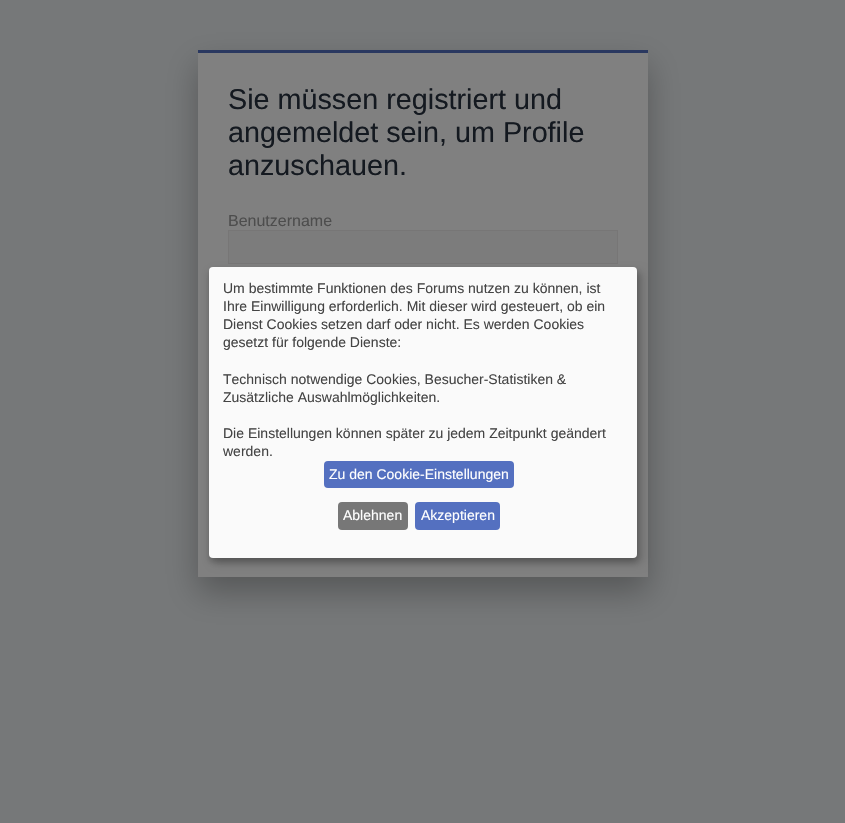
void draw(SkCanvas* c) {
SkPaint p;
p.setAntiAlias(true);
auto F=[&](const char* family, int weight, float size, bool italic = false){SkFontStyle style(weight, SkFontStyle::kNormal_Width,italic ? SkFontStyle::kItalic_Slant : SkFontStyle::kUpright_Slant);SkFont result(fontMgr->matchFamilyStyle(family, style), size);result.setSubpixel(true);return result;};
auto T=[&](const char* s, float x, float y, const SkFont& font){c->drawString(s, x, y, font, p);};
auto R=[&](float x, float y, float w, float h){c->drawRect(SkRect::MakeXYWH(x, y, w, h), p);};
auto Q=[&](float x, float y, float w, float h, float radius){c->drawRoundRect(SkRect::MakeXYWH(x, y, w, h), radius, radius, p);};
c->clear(0xff767879);
p.setColor(0x45000000);
p.setMaskFilter(SkMaskFilter::MakeBlur(kNormal_SkBlurStyle, 15));
c->drawRect(SkRect::MakeXYWH(198,65,450,527),p);
p.setMaskFilter(nullptr);
p.setColor(0xff808080);
R(198,53,450,524);
p.setColor(0xff2a3860);
R(198,50,450,3);
auto f1 = F("Liberation Sans",400,28.75);
p.setColor(0xff141920);
T("Sie müssen registriert und",228,109,f1);
T("angemeldet sein, um Profile",228,142,f1);
T("anzuschauen.",228,175,f1);
auto f2 = F("Liberation Sans",400,16);
p.setColor(0xff4d4d4d);
T("Benutzername",228,226,f2);
p.setColor(0xff7c7c7c);
c->drawRect(SkRect::MakeXYWH(228.5,230.5,389,33),p);
p.setStroke(true);
p.setStrokeWidth(1);
p.setColor(0xff777676);
c->drawRect(SkRect::MakeXYWH(228.5,230.5,389,33),p);
p.setStroke(false);
p.setColor(0x30000000);
p.setMaskFilter(SkMaskFilter::MakeBlur(kNormal_SkBlurStyle, 5));
c->drawRoundRect(SkRect::MakeXYWH(214,272,428,291),4,4,p);
p.setMaskFilter(nullptr);
p.setColor(0x33000000);
p.setMaskFilter(SkMaskFilter::MakeBlur(kNormal_SkBlurStyle, 3));
c->drawRoundRect(SkRect::MakeXYWH(209,271,428,291),4,4,p);
p.setMaskFilter(nullptr);
p.setColor(0xfffafafa);
Q(209,267,428,291,4);
auto f3 = F("Liberation Sans",400,14);
p.setColor(0xff444444);
T("Um bestimmte Funktionen des Forums nutzen zu können, ist",223,293,f3);
T("Ihre Einwilligung erforderlich. Mit dieser wird gesteuert, ob ein",223,311,f3);
T("Dienst Cookies setzen darf oder nicht. Es werden Cookies",223,329,f3);
T("gesetzt für folgende Dienste:",223,347,f3);
T("Technisch notwendige Cookies, Besucher-Statistiken &",223,384,f3);
T("Zusätzliche Auswahlmöglichkeiten.",223,402,f3);
T("Die Einstellungen können später zu jedem Zeitpunkt geändert",223,438,f3);
T("werden.",223,456,f3);
p.setColor(0xff5470c0);
Q(324,461,190,27,4);
p.setColor(0xffffffff);
T("Zu den Cookie-Einstellungen",329,479,f3);
p.setColor(0xff777777);
Q(338,502,70,28,4);
p.setColor(0xffffffff);
T("Ablehnen",343,520,f3);
p.setColor(0xff5470c0);
Q(415,502,85,28,4);
p.setColor(0xffffffff);
T("Akzeptieren",421,520,f3);
}
